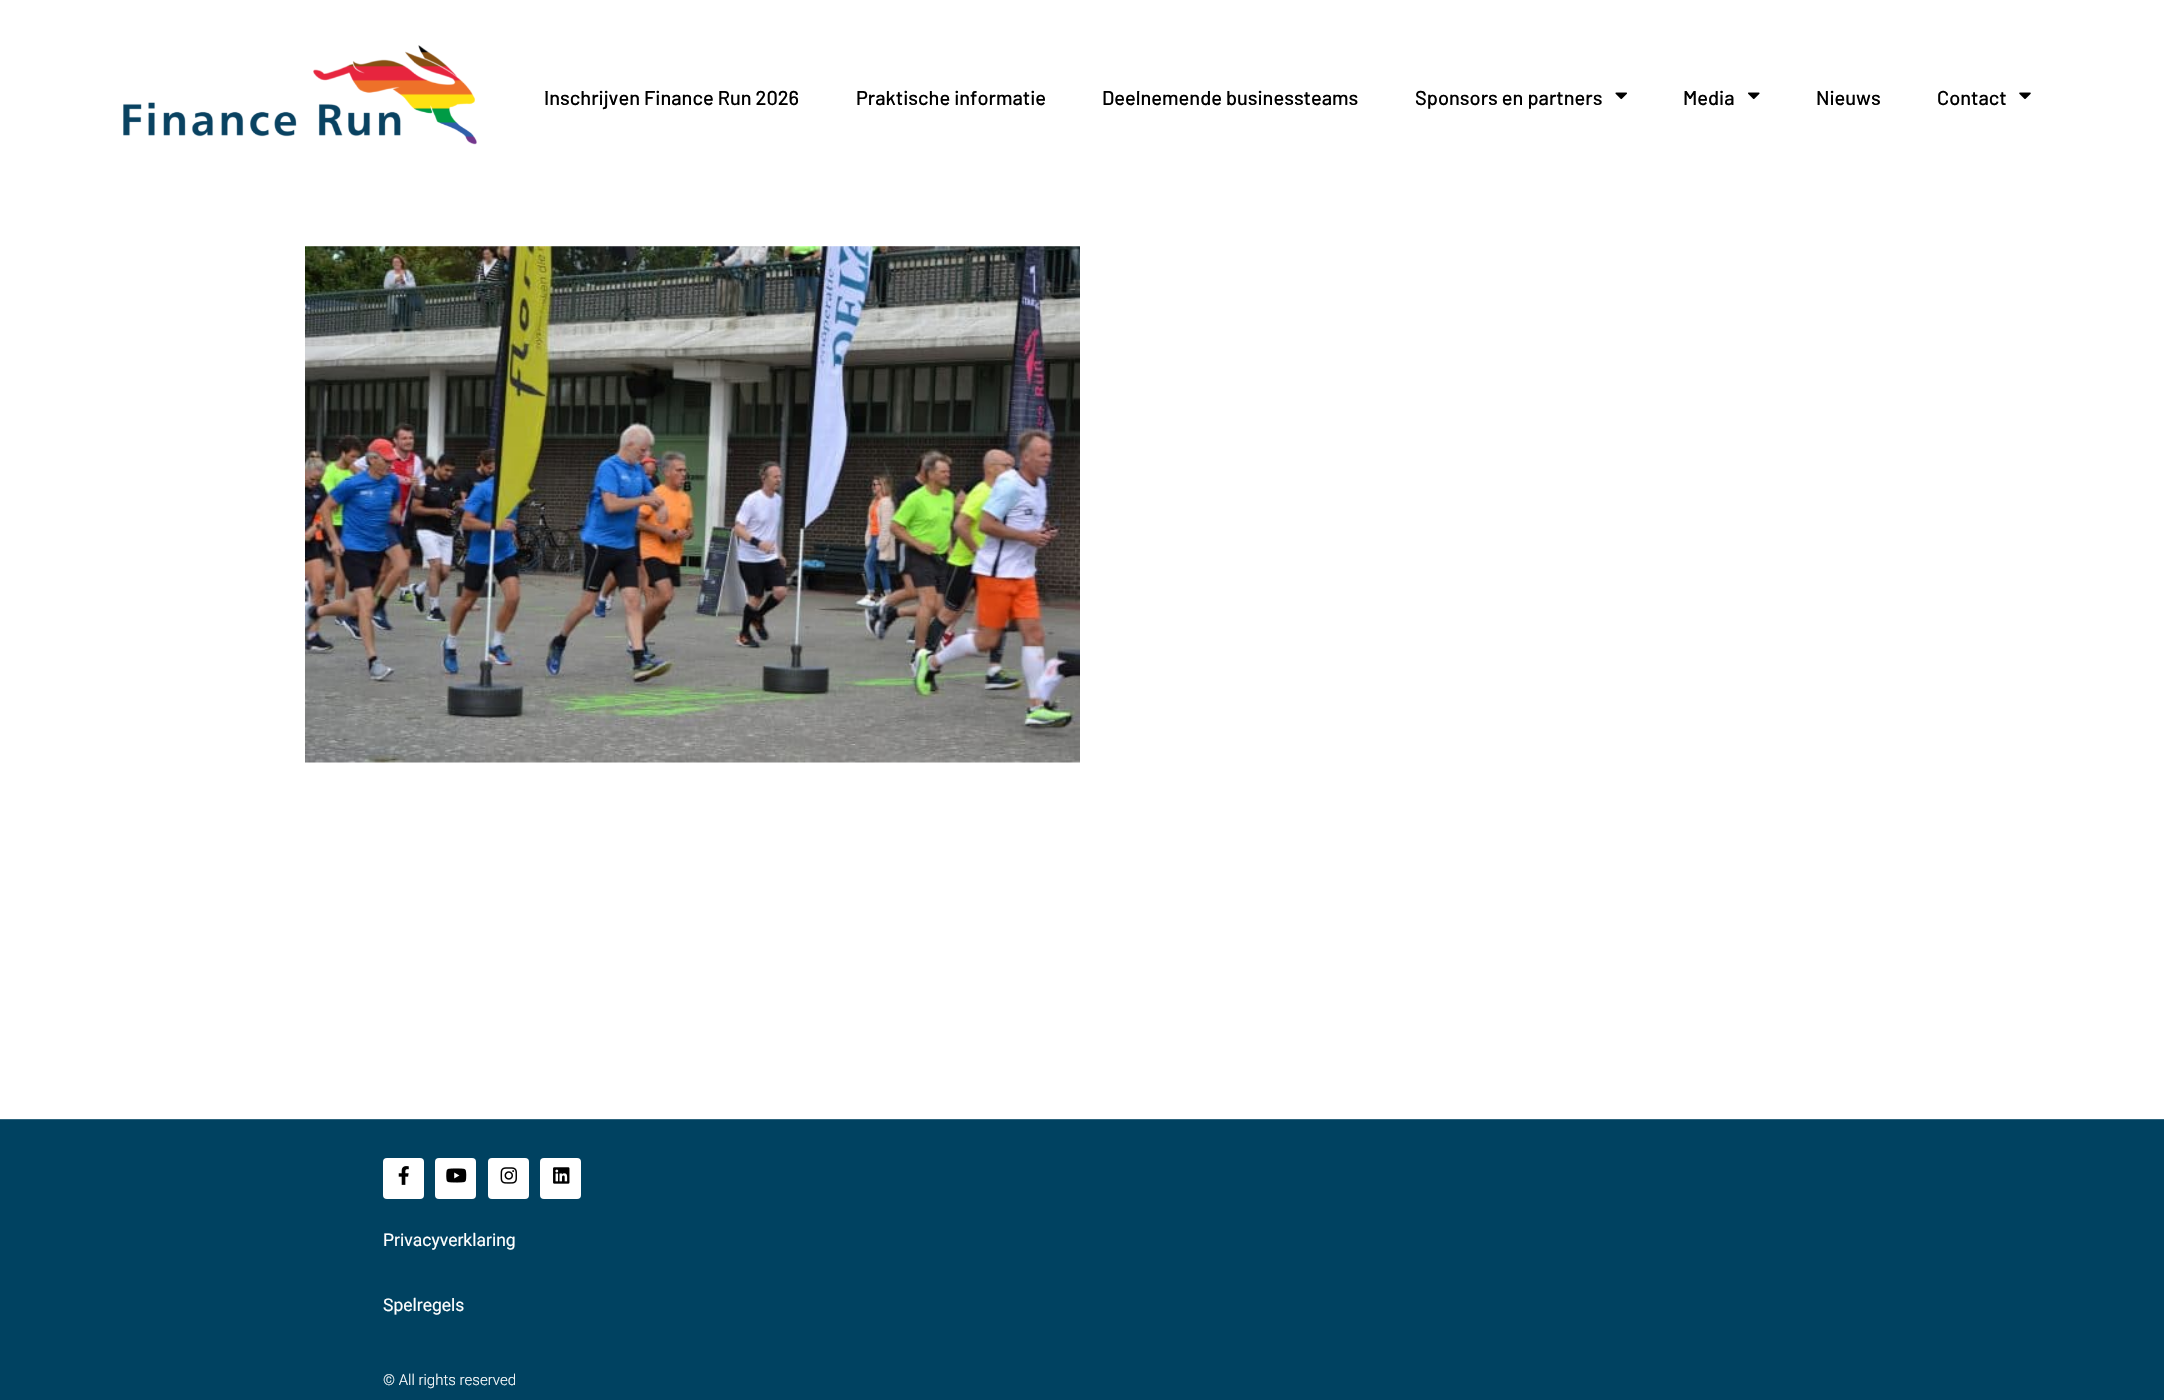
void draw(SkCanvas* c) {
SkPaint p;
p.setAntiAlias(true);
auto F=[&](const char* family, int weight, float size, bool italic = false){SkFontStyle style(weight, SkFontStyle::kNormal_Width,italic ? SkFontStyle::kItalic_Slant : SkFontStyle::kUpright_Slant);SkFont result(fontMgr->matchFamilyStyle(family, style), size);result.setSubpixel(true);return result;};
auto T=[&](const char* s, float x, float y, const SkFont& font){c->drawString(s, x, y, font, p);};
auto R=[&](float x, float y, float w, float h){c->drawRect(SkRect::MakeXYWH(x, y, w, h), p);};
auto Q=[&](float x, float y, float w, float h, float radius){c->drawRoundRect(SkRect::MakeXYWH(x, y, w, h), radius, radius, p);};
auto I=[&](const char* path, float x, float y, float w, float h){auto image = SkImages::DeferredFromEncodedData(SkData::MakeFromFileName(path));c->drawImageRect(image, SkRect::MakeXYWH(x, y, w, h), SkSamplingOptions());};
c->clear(0xffffffff);
I("1.png",123,45,354,100);
auto f1 = F("Barlow",500,20);
p.setColor(0xff000000);
T("Inschrijven Finance Run 2026",544,105,f1);
T("Praktische informatie",856,105,f1);
T("Deelnemende businessteams",1102,105,f1);
T("Sponsors en partners",1415,105,f1);
I("2.png",1615,92,12,8);
T("Media",1683,105,f1);
I("3.png",1748,92,12,8);
T("Nieuws",1816,105,f1);
T("Contact",1937,105,f1);
I("4.png",2019,92,12,7);
I("5.png",305,246,775,517);
p.setColor(0xff004261);
R(0,1120,2164,280);
p.setColor(0xff30667f);
R(0,1119,2164,1);
p.setColor(0xffffffff);
Q(383,1158,41,41,4);
I("6.png",398,1166,11,19);
Q(435,1158,41,41,4);
I("7.png",446,1168,21,15);
Q(488,1158,41,41,4);
I("8.png",500,1167,17,17);
Q(540,1158,41,41,4);
I("9.png",553,1167,17,17);
auto f2 = F("Roboto",400,17.5);
T("Privacyverklaring",383,1246,f2);
T("Spelregels",383,1311,f2);
auto f3 = F("Roboto",300,15);
T("© All rights reserved",383,1385,f3);
}
